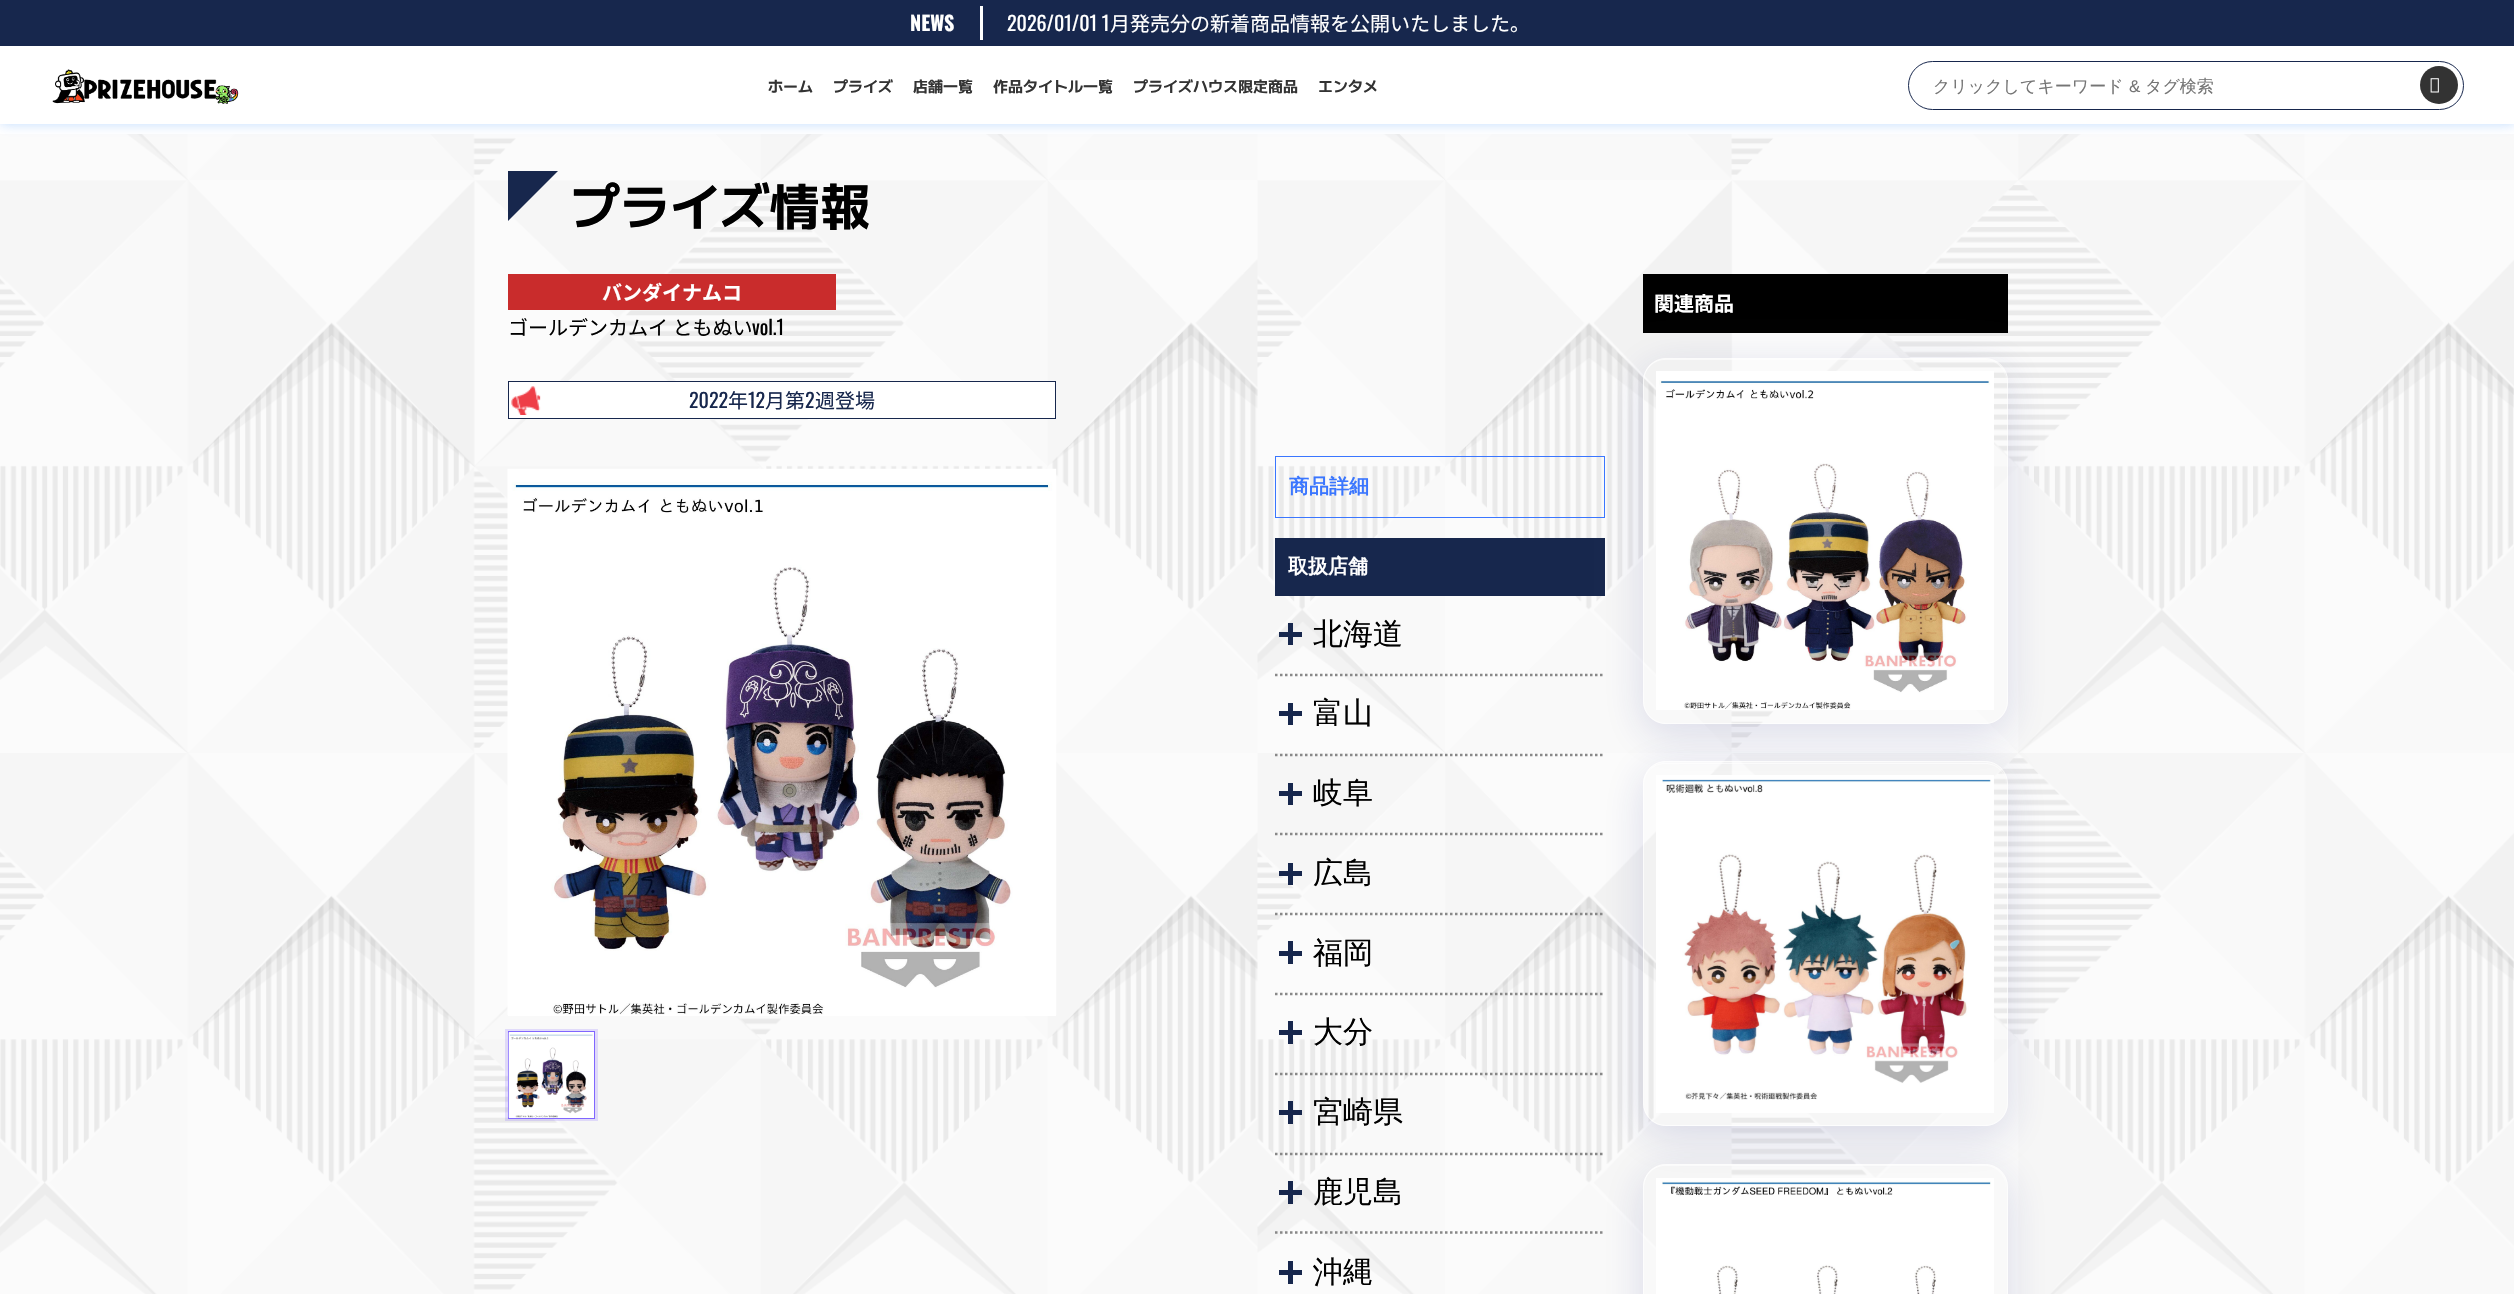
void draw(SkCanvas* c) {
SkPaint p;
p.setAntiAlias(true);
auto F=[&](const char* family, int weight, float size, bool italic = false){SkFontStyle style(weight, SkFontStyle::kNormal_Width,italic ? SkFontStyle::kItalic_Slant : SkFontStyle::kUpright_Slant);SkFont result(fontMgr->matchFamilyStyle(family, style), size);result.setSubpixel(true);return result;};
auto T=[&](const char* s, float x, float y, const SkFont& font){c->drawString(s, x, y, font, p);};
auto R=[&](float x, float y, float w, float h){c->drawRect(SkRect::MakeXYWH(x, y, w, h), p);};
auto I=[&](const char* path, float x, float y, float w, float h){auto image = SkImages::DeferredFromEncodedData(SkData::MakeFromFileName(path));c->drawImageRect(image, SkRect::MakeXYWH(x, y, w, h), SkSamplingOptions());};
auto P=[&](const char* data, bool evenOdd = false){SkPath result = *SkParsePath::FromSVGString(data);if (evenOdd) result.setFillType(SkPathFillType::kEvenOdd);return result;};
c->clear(0xffffffff);
p.setColor(0xfffafafa);
R(0,134,2514,1160);
I("3.png",0,134,2514,1160);
c->save();
c->clipPath(P("M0 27h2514v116h-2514zm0 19h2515v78h-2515z",true),true);
p.setColor(0x400870f8);
p.setMaskFilter(SkMaskFilter::MakeBlur(kNormal_SkBlurStyle, 6));
c->drawRect(SkRect::MakeXYWH(0,46,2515,78),p);
p.setMaskFilter(nullptr);
c->restore();
p.setColor(0xff17274d);
R(0,0,2514,46);
p.setColor(0xffffffff);
R(980,6,3,34);
auto f1 = F("Oswald",700,20);
T("NEWS",910,31,f1);
auto f2 = F("Oswald",400,20);
T("2026/01/01 1",1007,31,f2);
auto f3 = F("Noto Sans JP",400,20);
T("月発売分の新着商品情報を公開いたしました。",1110,31,f3);
{
const SkColor colors[] = {0x99ffffff,0x66ffffff};
const float stops[] = {0,1};
const SkPoint ends[] = {{1,-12}, {2514,32}};
p.setShader(SkGradientShader::MakeLinear(ends, colors, stops, 2, SkTileMode::kClamp));
p.setAlpha(255);
}
R(1,46,2513,1);
{
const SkColor colors[] = {0x99ffffff,0x66ffffff};
const float stops[] = {0,1};
const SkPoint ends[] = {{1,138}, {2514,182}};
p.setShader(SkGradientShader::MakeLinear(ends, colors, stops, 2, SkTileMode::kClamp));
p.setAlpha(255);
}
R(1,123,2513,1);
I("1.png",52,69,187,35);
auto f4 = F("M PLUS 1",700,15);
p.setShader(nullptr);
p.setColor(0xff333333);
T("ホーム",768,92,f4);
T("プライズ",833,92,f4);
T("店舗一覧",913,92,f4);
T("作品タイトル一覧",993,92,f4);
T("プライズハウス限定商品",1133,92,f4);
T("エンタメ",1318,92,f4);
p.setStroke(true);
p.setStrokeWidth(1);
p.setColor(0xff17274d);
c->drawRoundRect(SkRect::MakeXYWH(1908.5,61.5,555,48),24,24,p);
auto f5 = F("WenQuanYi Zen Hei",500,17);
p.setStroke(false);
p.setColor(0xff757575);
T("クリックしてキーワード",1933,92,f5);
auto f6 = F("Liberation Sans",400,17);
T("&",2129,92,f6);
T("タグ検索",2145,92,f5);
p.setColor(0xff333333);
c->drawCircle(2439,85,19,p);
I("2.png",2430,78,9,15);
p.setColor(0xff17274d);
c->drawPath(P("M508 221v-50h50z"),p);
auto f7 = F("M PLUS 1",700,50);
p.setColor(0xff000000);
T("プライズ情報",570,225,f7);
p.setColor(0xffc92c2c);
R(508,274,328,36);
auto f8 = F("Noto Sans JP",700,20);
p.setColor(0xffffffff);
T("バンダイナムコ",602,300,f8);
p.setColor(0xff000000);
T("ゴールデンカムイ ともぬい",508,335,f3);
T("vol.1",752,335,f2);
p.setColor(0xffffffff);
c->drawRect(SkRect::MakeXYWH(508.5,381.5,547,37),p);
p.setStroke(true);
p.setColor(0xff17274d);
c->drawRect(SkRect::MakeXYWH(508.5,381.5,547,37),p);
I("4.png",511,386,30,29);
p.setStroke(false);
T("2022",689,408,f2);
T("年",728,408,f3);
T("12",748,408,f2);
T("月第",765,408,f3);
T("2",805,408,f2);
T("週登場",815,408,f3);
p.setColor(0xffffffff);
R(508,1015,548,1);
I("5.png",507,468,550,547);
p.setStroke(true);
p.setStrokeWidth(3);
p.setColor(0x338066ff);
c->drawRect(SkRect::MakeXYWH(506.5,1030.5,90,89),p);
p.setStroke(false);
p.setColor(0xffffffff);
c->drawRect(SkRect::MakeXYWH(508.5,1031.5,86,87),p);
p.setStroke(true);
p.setStrokeWidth(1);
p.setColor(0xff8066ff);
c->drawRect(SkRect::MakeXYWH(508.5,1031.5,86,87),p);
I("6.png",508,1032,85,86);
p.setColor(0xff3a76ff);
c->drawRect(SkRect::MakeXYWH(1275.5,456.5,329,61),p);
auto f9 = F("WenQuanYi Zen Hei",700,20);
p.setStroke(false);
T("商品詳細",1289,493,f9);
p.setColor(0xff17274d);
R(1275,538,330,58);
p.setColor(0xffffffff);
T("取扱店舗",1288,573,f9);
p.setColor(0xff17274d);
R(1288,623,5,22);
auto f10 = F("WenQuanYi Zen Hei",500,30);
p.setColor(0xff000000);
T("北海道",1313,644,f10);
p.setColor(0xff17274d);
R(1279,632,23,5);
p.setStroke(true);
p.setStrokeWidth(2.5);
p.setColor(0xff888888);
p.setPathEffect(SkDashPathEffect::Make({{2.5f,2.5f}}, 0));
c->drawPath(P("M1275 675h330"),p);
p.setPathEffect(nullptr);
p.setStroke(false);
p.setColor(0xff17274d);
R(1288,703,5,22);
p.setColor(0xff000000);
T("富山",1313,723,f10);
p.setColor(0xff17274d);
R(1279,711,23,5);
p.setStroke(true);
p.setColor(0xff888888);
p.setPathEffect(SkDashPathEffect::Make({{2.5f,2.5f}}, 0));
c->drawPath(P("M1275 755h330"),p);
p.setPathEffect(nullptr);
p.setStroke(false);
p.setColor(0xff17274d);
R(1288,783,5,22);
p.setColor(0xff000000);
T("岐阜",1313,803,f10);
p.setColor(0xff17274d);
R(1279,791,23,5);
p.setStroke(true);
p.setColor(0xff888888);
p.setPathEffect(SkDashPathEffect::Make({{2.5f,2.5f}}, 0));
c->drawPath(P("M1275 834h330"),p);
p.setPathEffect(nullptr);
p.setStroke(false);
p.setColor(0xff17274d);
R(1288,863,5,22);
p.setColor(0xff000000);
T("広島",1313,883,f10);
p.setColor(0xff17274d);
R(1279,871,23,5);
p.setStroke(true);
p.setColor(0xff888888);
p.setPathEffect(SkDashPathEffect::Make({{2.5f,2.5f}}, 0));
c->drawPath(P("M1275 914h330"),p);
p.setPathEffect(nullptr);
p.setStroke(false);
p.setColor(0xff17274d);
R(1288,941,5,23);
p.setColor(0xff000000);
T("福岡",1313,963,f10);
p.setColor(0xff17274d);
R(1279,951,23,5);
p.setStroke(true);
p.setColor(0xff888888);
p.setPathEffect(SkDashPathEffect::Make({{2.5f,2.5f}}, 0));
c->drawPath(P("M1275 994h330"),p);
p.setPathEffect(nullptr);
p.setStroke(false);
p.setColor(0xff17274d);
R(1288,1021,5,23);
p.setColor(0xff000000);
T("大分",1313,1042,f10);
p.setColor(0xff17274d);
R(1279,1030,23,5);
p.setStroke(true);
p.setColor(0xff888888);
p.setPathEffect(SkDashPathEffect::Make({{2.5f,2.5f}}, 0));
c->drawPath(P("M1275 1074h330"),p);
p.setPathEffect(nullptr);
p.setStroke(false);
p.setColor(0xff17274d);
R(1288,1101,5,23);
p.setColor(0xff000000);
T("宮崎県",1313,1122,f10);
p.setColor(0xff17274d);
R(1279,1110,23,5);
p.setStroke(true);
p.setColor(0xff888888);
p.setPathEffect(SkDashPathEffect::Make({{2.5f,2.5f}}, 0));
c->drawPath(P("M1275 1154h330"),p);
p.setPathEffect(nullptr);
p.setStroke(false);
p.setColor(0xff17274d);
R(1288,1181,5,23);
p.setColor(0xff000000);
T("鹿児島",1313,1202,f10);
p.setColor(0xff17274d);
R(1279,1190,23,5);
p.setStroke(true);
p.setColor(0xff888888);
p.setPathEffect(SkDashPathEffect::Make({{2.5f,2.5f}}, 0));
c->drawPath(P("M1275 1232.5h330"),p);
p.setPathEffect(nullptr);
p.setStroke(false);
p.setColor(0xff17274d);
R(1288,1261,5,23);
p.setColor(0xff000000);
T("沖縄",1313,1282,f10);
p.setColor(0xff17274d);
R(1279,1270,23,5);
p.setColor(0xff000000);
R(1643,274,365,59);
p.setColor(0xffffffff);
T("関連商品",1654,311,f8);
c->save();
c->clipPath(P("M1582 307h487v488h-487zm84 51h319c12.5 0 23 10.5 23 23v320c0 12.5-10.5 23-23 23h-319c-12.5 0-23-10.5-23-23v-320c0-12.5 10.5-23 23-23z",true),true);
p.setColor(0x261f2687);
p.setMaskFilter(SkMaskFilter::MakeBlur(kNormal_SkBlurStyle, 20));
c->drawRoundRect(SkRect::MakeXYWH(1643,368,365,366),23,23,p);
p.setMaskFilter(nullptr);
c->restore();
p.setColor(0x99ffffff);
c->drawPath(P("M1665 360h320c12 0 21 10 21 21v-1c0-12-9-21-21-21h-320c-12 0-21 9-21 21v1c0-11 9-21 21-21z"),p);
p.setStroke(true);
p.setStrokeWidth(1);
p.setColor(0xb5ffffff);
c->drawRoundRect(SkRect::MakeXYWH(1643.5,358.5,364,365),22.5,22.5,p);
p.setStroke(false);
p.setColor(0xffffffff);
R(1656,371,338,339);
I("7.png",1659,380,331,329);
c->save();
c->clipPath(P("M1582 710h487v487h-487zm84 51h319c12.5 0 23 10.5 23 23v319c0 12.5-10.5 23-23 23h-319c-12.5 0-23-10.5-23-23v-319c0-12.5 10.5-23 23-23z",true),true);
p.setColor(0x261f2687);
p.setMaskFilter(SkMaskFilter::MakeBlur(kNormal_SkBlurStyle, 20));
c->drawRoundRect(SkRect::MakeXYWH(1643,771,365,365),23,23,p);
p.setMaskFilter(nullptr);
c->restore();
p.setColor(0x99ffffff);
c->drawPath(P("M1665 764h320c12 0 21 9 21 21v-1c0-12-9-21-21-21h-320c-12 0-21 9-21 21v1c0-12 9-21 21-21z"),p);
p.setStroke(true);
p.setColor(0xb5ffffff);
c->drawRoundRect(SkRect::MakeXYWH(1643.5,761.5,364,364),22.5,22.5,p);
p.setStroke(false);
p.setColor(0xffffffff);
R(1656,775,338,338);
I("8.png",1662,779,329,321);
c->save();
c->clipPath(P("M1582 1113h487v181h-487zm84 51h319c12.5 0 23 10.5 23 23v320c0 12.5-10.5 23-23 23h-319c-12.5 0-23-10.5-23-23v-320c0-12.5 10.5-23 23-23z",true),true);
p.setColor(0x261f2687);
p.setMaskFilter(SkMaskFilter::MakeBlur(kNormal_SkBlurStyle, 20));
c->drawRoundRect(SkRect::MakeXYWH(1643,1174,365,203),23,23,p);
p.setMaskFilter(nullptr);
c->restore();
p.setColor(0x99ffffff);
c->drawPath(P("M1665 1166h320c12 0 21 10 21 22v-2c0-12-9-21-21-21h-320c-12 0-21 9-21 21v2c0-12 9-22 21-22z"),p);
p.setStroke(true);
p.setColor(0xb5ffffff);
c->drawRoundRect(SkRect::MakeXYWH(1643.5,1164.5,364,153),22.5,22.5,p);
p.setStroke(false);
p.setColor(0xffffffff);
R(1656,1178,338,116);
I("9.png",1662,1181,329,113);
}
